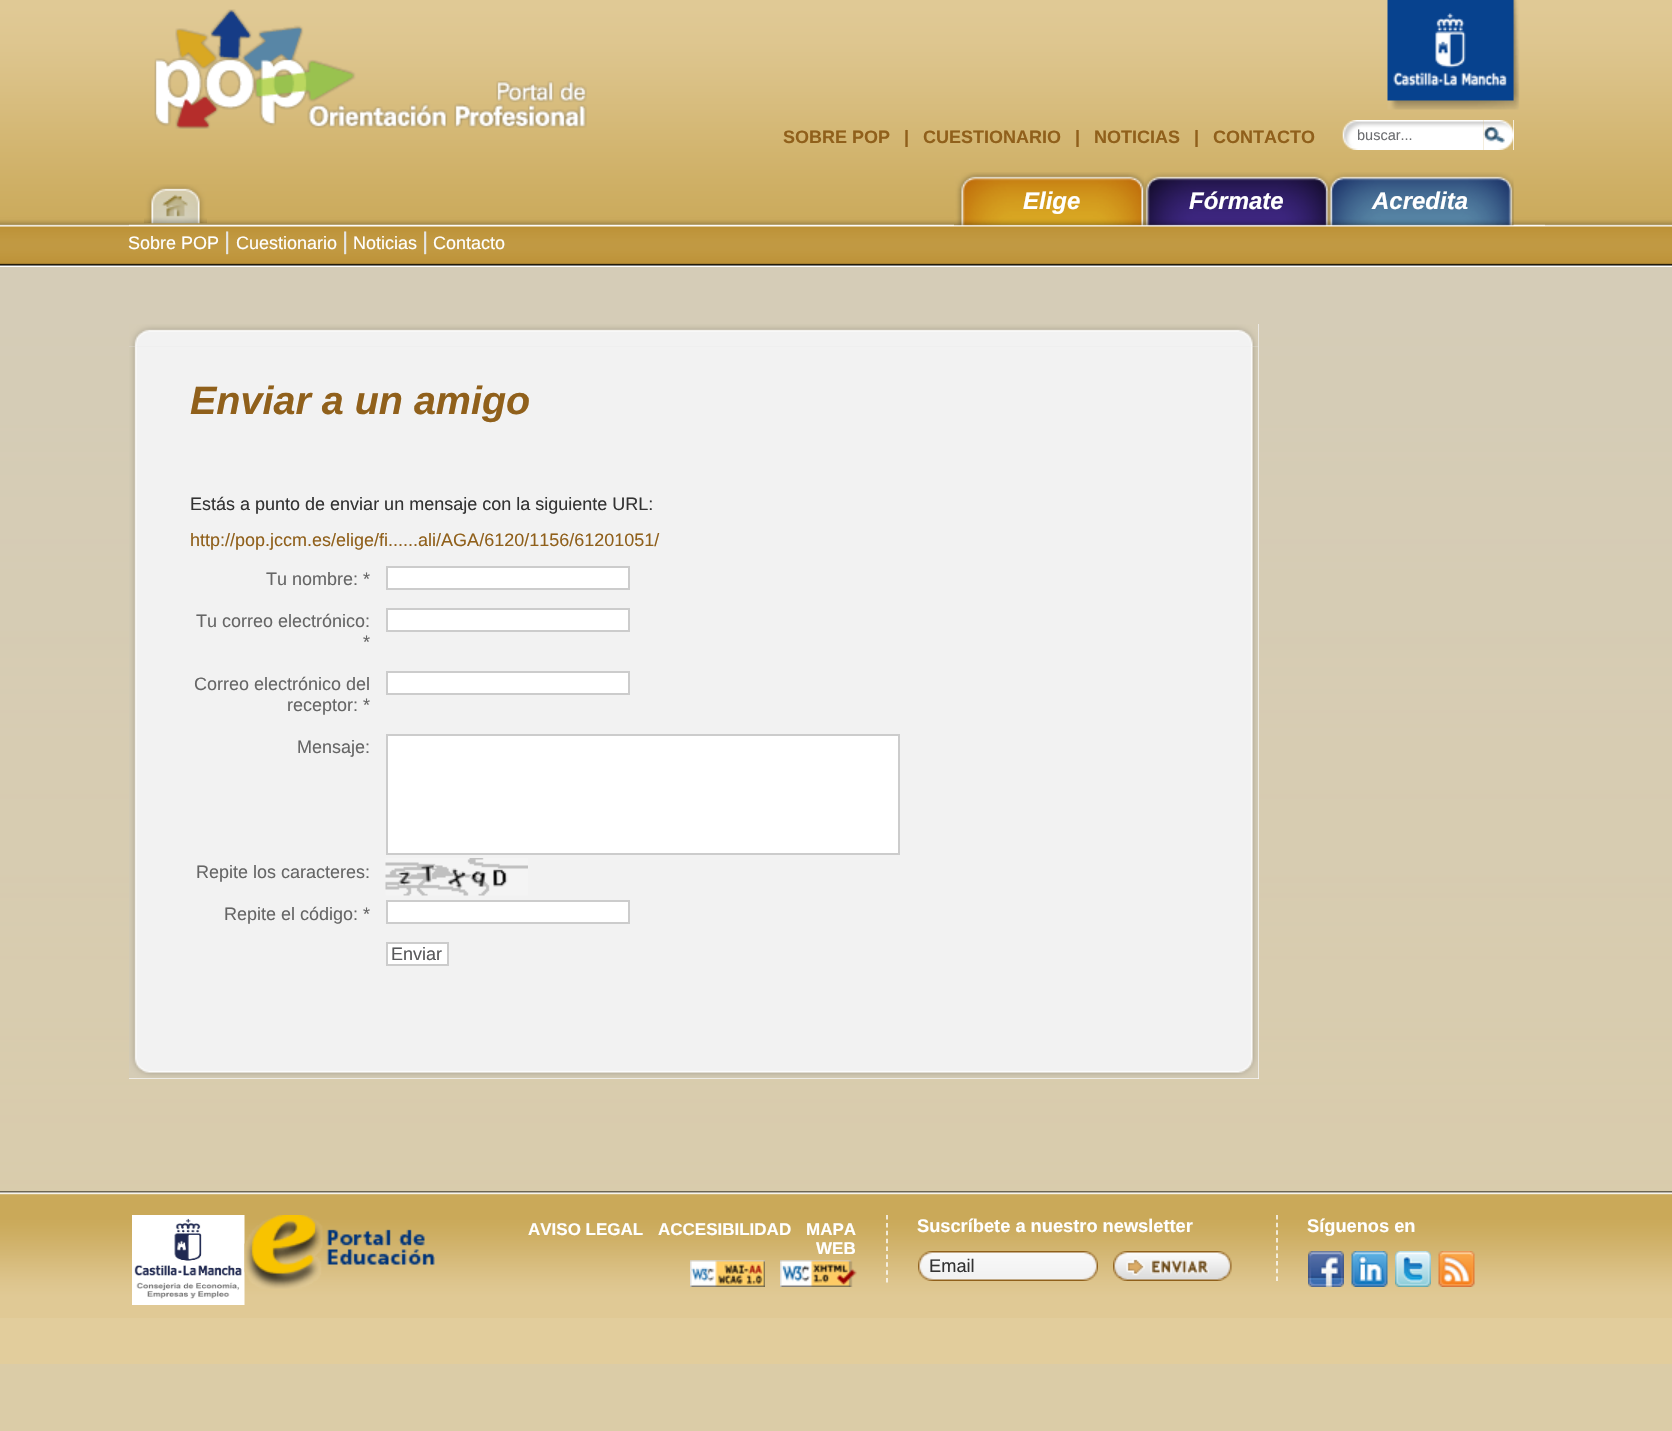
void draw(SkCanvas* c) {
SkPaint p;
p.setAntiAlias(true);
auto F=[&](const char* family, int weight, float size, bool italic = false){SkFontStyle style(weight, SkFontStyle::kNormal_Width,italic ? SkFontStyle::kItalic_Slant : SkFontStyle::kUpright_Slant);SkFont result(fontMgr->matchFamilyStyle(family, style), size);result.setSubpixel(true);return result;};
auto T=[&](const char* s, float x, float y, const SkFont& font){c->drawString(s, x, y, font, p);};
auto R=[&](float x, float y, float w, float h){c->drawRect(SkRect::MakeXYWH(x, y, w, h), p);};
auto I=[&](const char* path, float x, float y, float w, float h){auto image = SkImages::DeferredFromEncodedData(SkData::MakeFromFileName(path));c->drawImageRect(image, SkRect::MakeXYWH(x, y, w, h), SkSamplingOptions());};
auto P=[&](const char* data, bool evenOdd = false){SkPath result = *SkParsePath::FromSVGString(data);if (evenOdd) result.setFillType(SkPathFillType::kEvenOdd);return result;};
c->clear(0xffdbcca7);
I("1.png",0,0,1672,1191);
I("2.png",0,218,1672,49);
I("3.png",154,9,433,120);
I("4.png",1387,0,133,110);
auto f1 = F("Liberation Sans",700,18);
p.setColor(0xff90601b);
T("SOBRE POP",783,143,f1);
T("|",904,143,f1);
T("CUESTIONARIO",923,143,f1);
T("|",1075,143,f1);
T("NOTICIAS",1094,143,f1);
T("|",1194,143,f1);
T("CONTACTO",1213,143,f1);
I("5.png",1342,120,142,30);
c->save();
c->clipRect(SkRect::MakeXYWH(1358,128,126,16));
auto f2 = F("Liberation Sans",400,14.5);
p.setColor(0xff6d6e71);
T("buscar...",1357,140,f2);
c->restore();
p.setColor(0xffffffff);
R(1513,120,1,30);
I("6.png",1483,120,31,30);
I("7.png",129,224,1416,2);
I("8.png",144,184,63,40);
I("9.png",954,172,191,54);
auto f3 = F("Liberation Sans",700,24,true);
T("Elige",1023,209,f3);
I("10.png",1144,172,185,54);
T("Fórmate",1189,209,f3);
I("11.png",1329,172,185,54);
T("Acredita",1372,209,f3);
auto f4 = F("Liberation Sans",400,18);
T("Sobre POP",128,249,f4);
auto f5 = F("Liberation Sans",400,24);
p.setColor(0xffe6e6e6);
T("|",224,249,f5);
p.setColor(0xffffffff);
T("Cuestionario",236,249,f4);
p.setColor(0xffe6e6e6);
T("|",342,249,f5);
p.setColor(0xffffffff);
T("Noticias",353,249,f4);
p.setColor(0xffe6e6e6);
T("|",422,249,f5);
p.setColor(0xffffffff);
T("Contacto",433,249,f4);
p.setColor(0xfffcfcfc);
R(129,324,1130,755);
I("12.png",129,324,1130,755);
I("14.png",129,346,1130,710);
I("13.png",129,324,1130,23);
auto f6 = F("Liberation Sans",700,39.5,true);
p.setColor(0xff90601b);
T("Enviar a un amigo",190,414,f6);
p.setColor(0xff333333);
T("Estás a punto de enviar un mensaje con la siguiente URL:",190,510,f4);
p.setColor(0xff90601b);
T("http://pop.jccm.es/elige/fi......ali/AGA/6120/1156/61201051/",190,546,f4);
p.setColor(0xff666666);
T("Tu nombre: *",266,585,f4);
p.setColor(0xffffffff);
c->drawRect(SkRect::MakeXYWH(387,567,242,22),p);
p.setStroke(true);
p.setStrokeWidth(2);
p.setColor(0xffcccccc);
c->drawRect(SkRect::MakeXYWH(387,567,242,22),p);
p.setStroke(false);
p.setColor(0xff666666);
T("Tu correo electrónico:",196,627,f4);
T("*",363,648,f4);
p.setColor(0xffffffff);
c->drawRect(SkRect::MakeXYWH(387,609,242,22),p);
p.setStroke(true);
p.setColor(0xffcccccc);
c->drawRect(SkRect::MakeXYWH(387,609,242,22),p);
p.setStroke(false);
p.setColor(0xff666666);
T("Correo electrónico del",194,690,f4);
T("receptor: *",287,711,f4);
p.setColor(0xffffffff);
c->drawRect(SkRect::MakeXYWH(387,672,242,22),p);
p.setStroke(true);
p.setColor(0xffcccccc);
c->drawRect(SkRect::MakeXYWH(387,672,242,22),p);
p.setStroke(false);
p.setColor(0xff666666);
T("Mensaje:",297,753,f4);
p.setColor(0xffffffff);
c->drawRect(SkRect::MakeXYWH(387,735,512,119),p);
p.setStroke(true);
p.setColor(0xffcccccc);
c->drawRect(SkRect::MakeXYWH(387,735,512,119),p);
p.setStroke(false);
p.setColor(0xff666666);
T("Repite los caracteres:",196,878,f4);
I("15.png",385,858,143,38);
T("Repite el código: *",224,920,f4);
p.setColor(0xffffffff);
c->drawRect(SkRect::MakeXYWH(387,901,242,22),p);
p.setStroke(true);
p.setColor(0xffcccccc);
c->drawRect(SkRect::MakeXYWH(387,901,242,22),p);
p.setStroke(false);
p.setColor(0xffffffff);
c->drawRect(SkRect::MakeXYWH(387,943,61,22),p);
p.setStroke(true);
p.setColor(0xffcccccc);
c->drawRect(SkRect::MakeXYWH(387,943,61,22),p);
p.setStroke(false);
p.setColor(0xff58595b);
T("Enviar",391,960,f4);
I("16.png",129,1056,1130,23);
p.setColor(0xffe2cd9c);
R(0,1318,1672,46);
I("17.png",0,1191,1672,127);
I("18.png",132,1215,113,90);
I("19.png",244,1215,191,74);
p.setStroke(true);
p.setStrokeWidth(1.5);
p.setColor(0xffffffff);
p.setPathEffect(SkDashPathEffect::Make({{4.5f,3.38f}}, 0));
c->drawPath(P("M887 1215v67.5"),p);
p.setPathEffect(nullptr);
auto f7 = F("Liberation Sans",700,17);
p.setStroke(false);
T("AVISO LEGAL",528,1235,f7);
T("ACCESIBILIDAD",658,1235,f7);
T("MAPA",806,1235,f7);
T("WEB",816,1254,f7);
I("20.png",690,1260,75,27);
I("21.png",780,1260,77,27);
p.setStroke(true);
p.setPathEffect(SkDashPathEffect::Make({{4.5f,3.18f}}, 0));
c->drawPath(P("M1277 1215v66"),p);
p.setPathEffect(nullptr);
auto f8 = F("Liberation Sans",700,18.25);
p.setStroke(false);
T("Suscríbete a nuestro newsletter",917,1232,f8);
I("22.png",918,1251,180,30);
auto f9 = F("Liberation Sans",400,18.25);
p.setColor(0xff333333);
T("Email",929,1272,f9);
I("23.png",1113,1251,119,30);
p.setColor(0xffffffff);
T("Síguenos en",1307,1232,f8);
I("24.png",1308,1251,36,36);
I("25.png",1351,1251,37,36);
I("26.png",1395,1251,36,36);
I("27.png",1438,1251,37,36);
}
